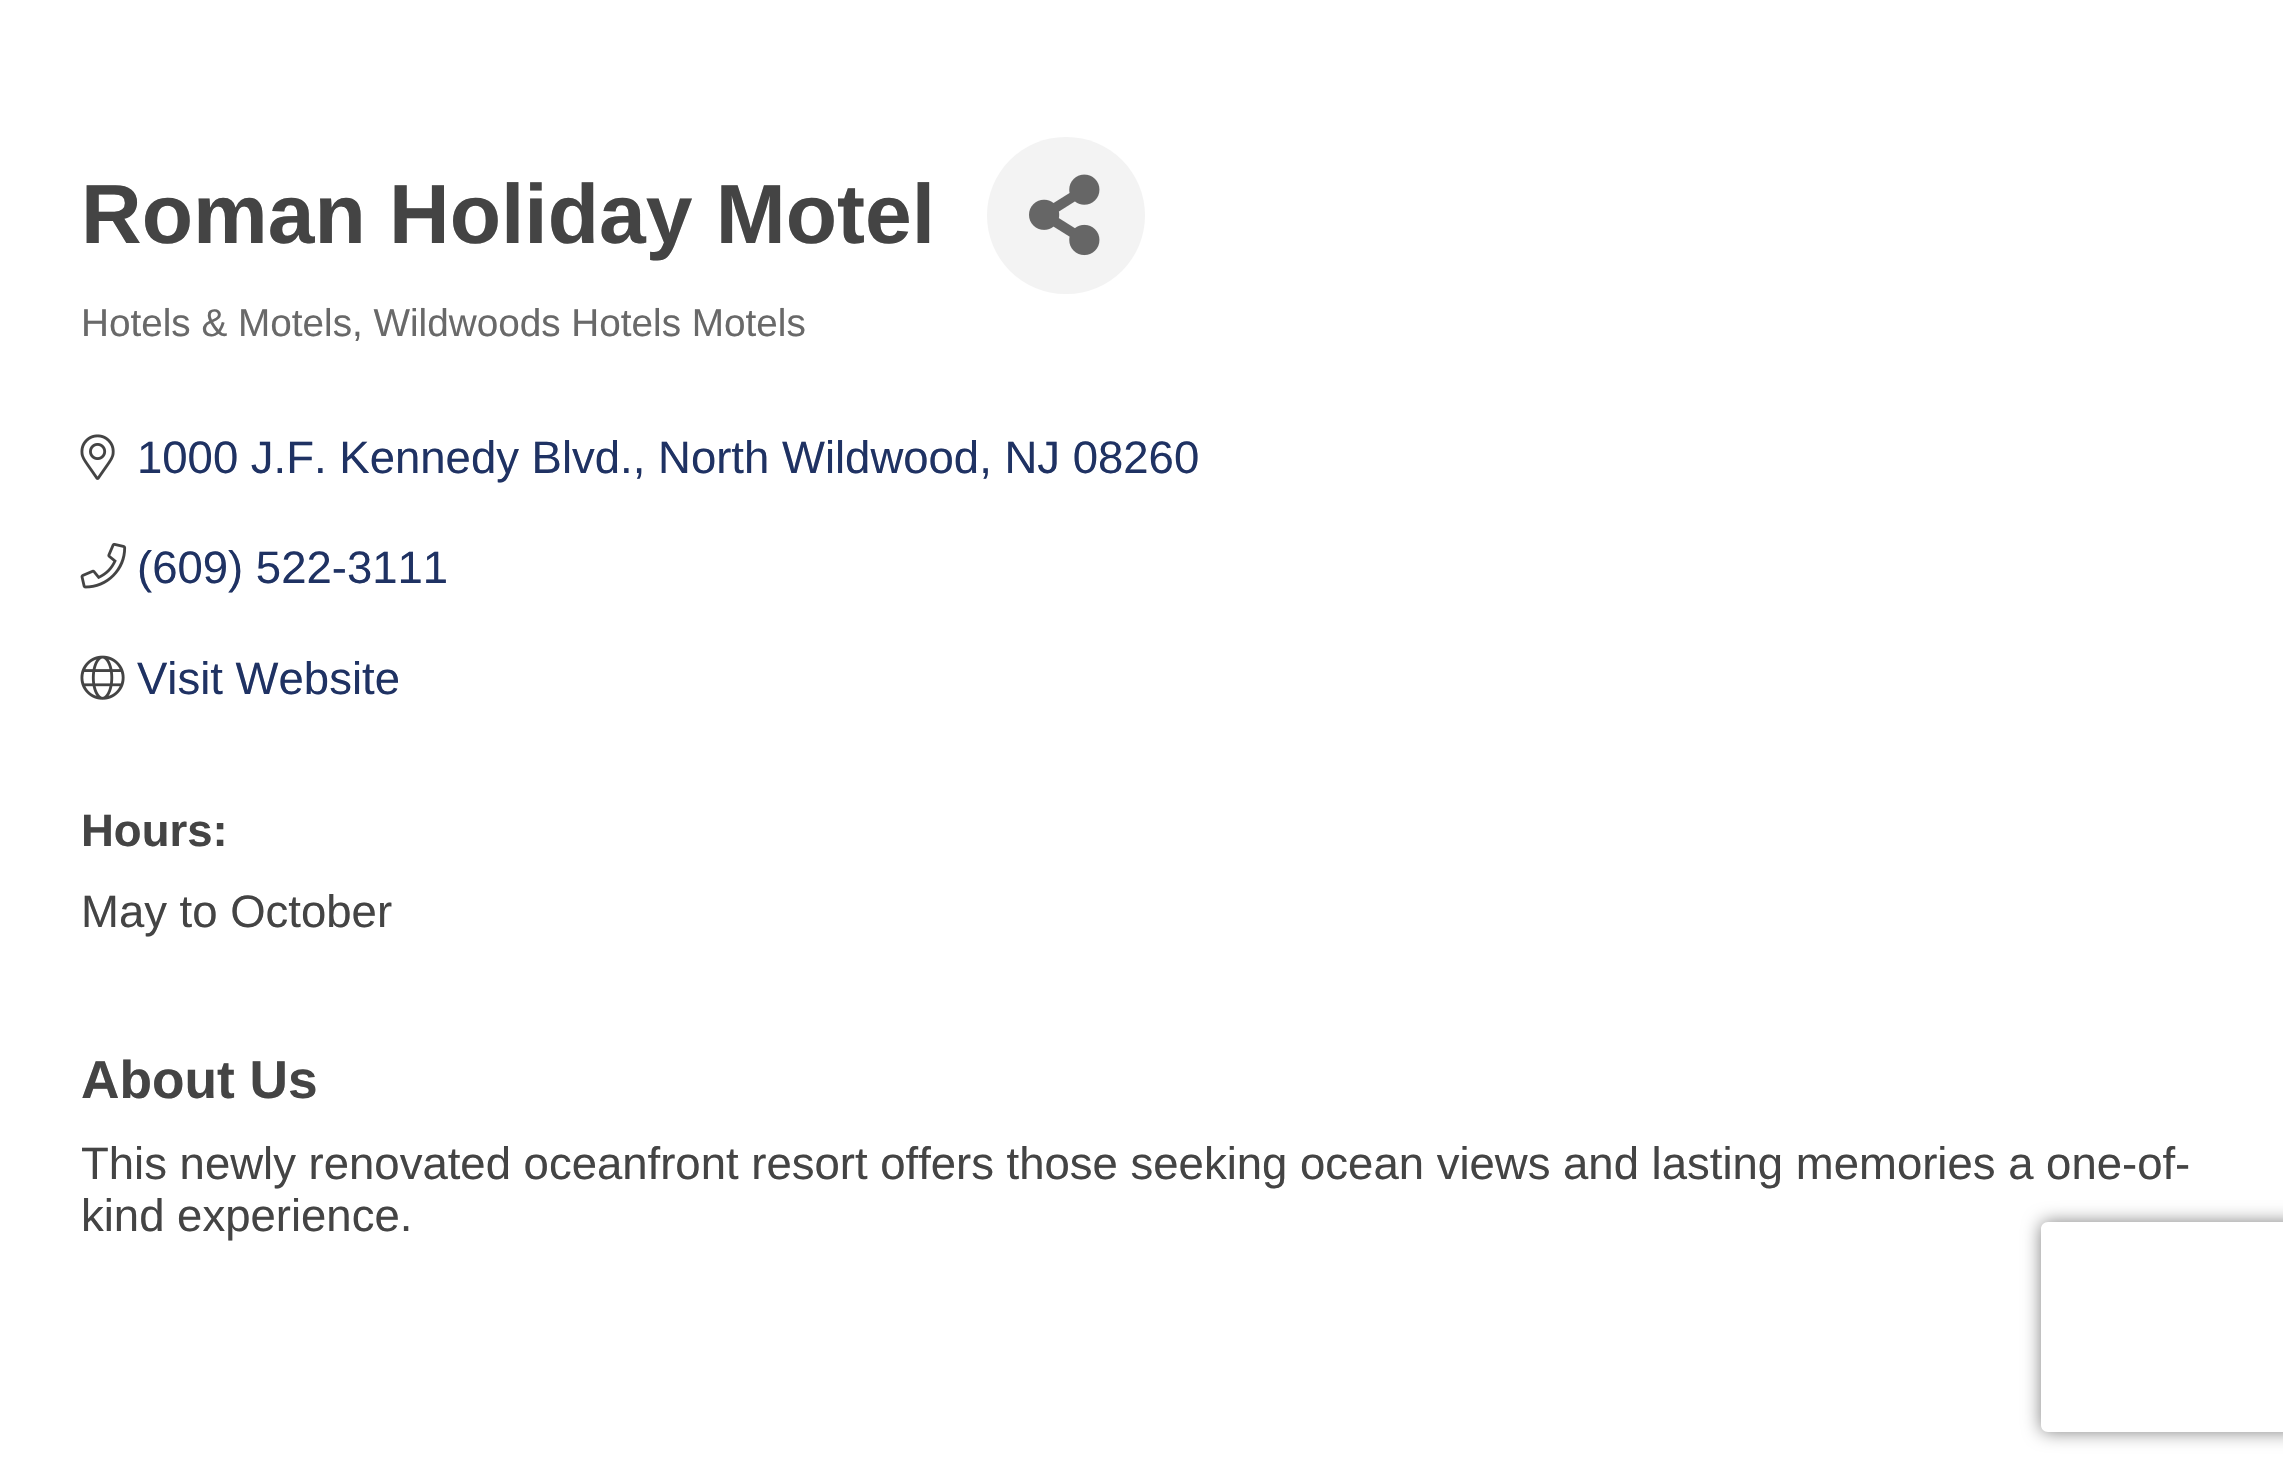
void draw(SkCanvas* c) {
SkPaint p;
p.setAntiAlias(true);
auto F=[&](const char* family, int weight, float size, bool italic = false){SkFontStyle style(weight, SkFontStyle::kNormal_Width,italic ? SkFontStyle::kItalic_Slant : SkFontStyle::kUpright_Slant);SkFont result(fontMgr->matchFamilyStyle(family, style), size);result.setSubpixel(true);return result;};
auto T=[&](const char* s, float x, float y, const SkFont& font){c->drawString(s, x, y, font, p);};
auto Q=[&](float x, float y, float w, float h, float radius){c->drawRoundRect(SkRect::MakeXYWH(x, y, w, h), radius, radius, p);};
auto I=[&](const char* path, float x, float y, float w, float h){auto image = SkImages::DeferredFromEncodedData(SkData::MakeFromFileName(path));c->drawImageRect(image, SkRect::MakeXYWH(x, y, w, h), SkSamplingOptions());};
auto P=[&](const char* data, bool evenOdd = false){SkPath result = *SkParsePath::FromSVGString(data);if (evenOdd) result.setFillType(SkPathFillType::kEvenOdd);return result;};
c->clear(0xffffffff);
auto f1 = F("Liberation Sans",700,84);
p.setColor(0xff444444);
T("Roman Holiday Motel",81,243,f1);
p.setColor(0xfff3f3f3);
Q(987,137,158,157,78.5);
I("1.png",1029,174,71,82);
auto f2 = F("Liberation Sans",400,38.7);
p.setColor(0xff696969);
T("Hotels & Motels, Wildwoods Hotels Motels",81,336,f2);
I("2.png",80,434,35,46);
auto f3 = F("Liberation Sans",400,45.5);
p.setColor(0xff1f3263);
T("1000 J.F. Kennedy Blvd., North Wildwood, NJ 08260",137,473,f3);
I("3.png",80,542,47,47);
T("(609) 522-3111",137,583,f3);
I("4.png",80,655,45,45);
T("Visit Website",137,694,f3);
auto f4 = F("Liberation Sans",700,45.5);
p.setColor(0xff444444);
T("Hours:",81,846,f4);
T("May to October",81,927,f3);
auto f5 = F("Liberation Sans",700,53.25);
T("About Us",81,1098,f5);
T("This newly renovated oceanfront resort offers those seeking ocean views and lasting memories a one-of-",81,1179,f3);
T("kind experience.",81,1231,f3);
c->save();
c->clipPath(P("M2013 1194h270v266h-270zm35 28h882c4 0 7 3 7 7v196c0 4-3 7-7 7h-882c-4 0-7-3-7-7v-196c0-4 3-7 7-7z",true),true);
p.setColor(0xff808080);
p.setMaskFilter(SkMaskFilter::MakeBlur(kNormal_SkBlurStyle, 9));
c->drawRoundRect(SkRect::MakeXYWH(2041,1222,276,210),7,7,p);
p.setMaskFilter(nullptr);
c->restore();
}
